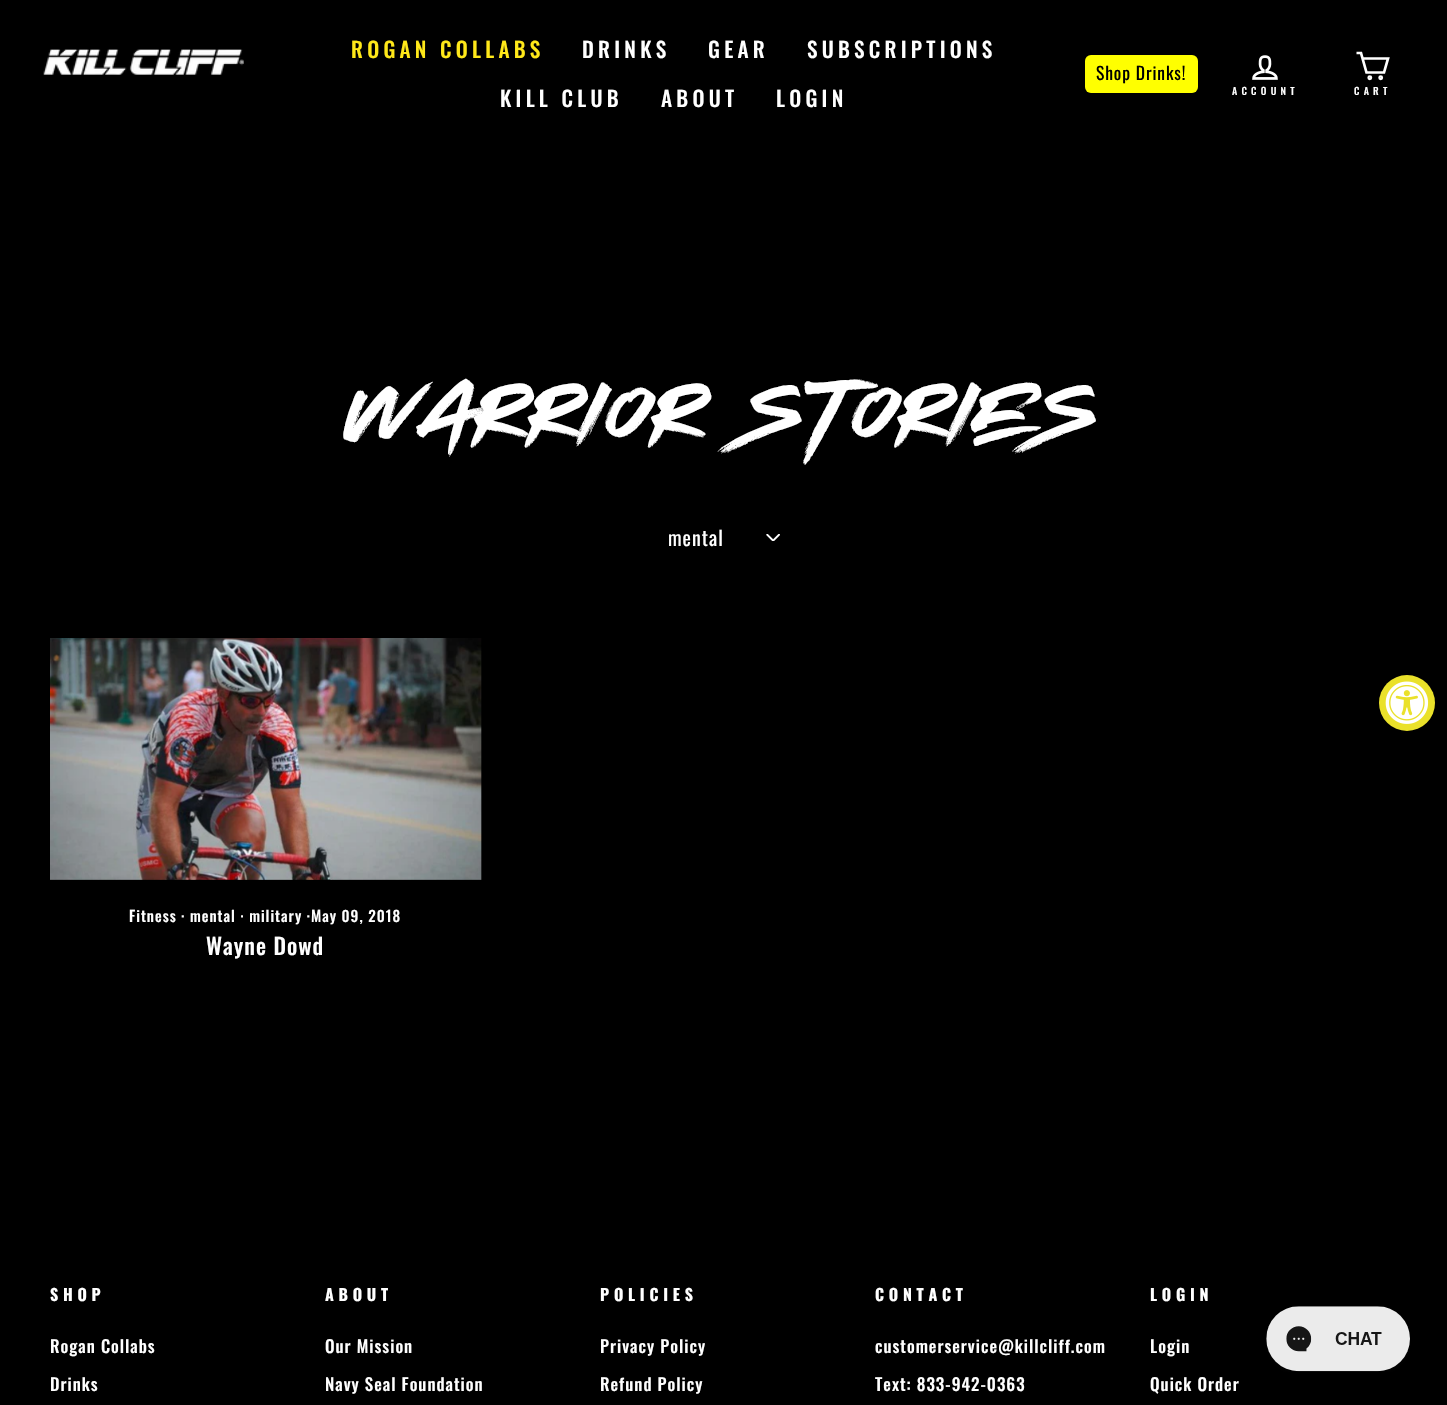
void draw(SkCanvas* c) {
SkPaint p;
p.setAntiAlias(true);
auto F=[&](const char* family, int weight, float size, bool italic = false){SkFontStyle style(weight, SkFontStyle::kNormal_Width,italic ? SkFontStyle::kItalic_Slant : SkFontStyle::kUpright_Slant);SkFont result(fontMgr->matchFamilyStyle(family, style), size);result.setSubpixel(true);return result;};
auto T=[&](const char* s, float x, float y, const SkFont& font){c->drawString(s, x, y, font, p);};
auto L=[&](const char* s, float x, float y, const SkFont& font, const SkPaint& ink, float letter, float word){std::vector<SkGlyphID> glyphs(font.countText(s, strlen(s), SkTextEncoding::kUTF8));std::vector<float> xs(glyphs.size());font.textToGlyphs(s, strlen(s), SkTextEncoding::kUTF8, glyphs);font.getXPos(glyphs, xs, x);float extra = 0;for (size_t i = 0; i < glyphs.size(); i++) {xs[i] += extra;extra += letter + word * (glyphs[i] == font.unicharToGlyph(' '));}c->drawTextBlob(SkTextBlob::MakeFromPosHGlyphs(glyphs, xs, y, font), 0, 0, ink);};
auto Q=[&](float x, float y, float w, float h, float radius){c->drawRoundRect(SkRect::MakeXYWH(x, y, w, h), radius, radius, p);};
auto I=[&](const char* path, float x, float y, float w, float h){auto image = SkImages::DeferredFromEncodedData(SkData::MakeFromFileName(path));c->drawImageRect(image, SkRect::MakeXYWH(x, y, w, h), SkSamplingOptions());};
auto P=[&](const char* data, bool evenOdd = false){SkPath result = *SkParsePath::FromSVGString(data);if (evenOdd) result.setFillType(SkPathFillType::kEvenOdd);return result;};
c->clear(0xff000000);
I("1.png",43,49,201,26);
auto f1 = F("Oswald",500,21.25);
p.setColor(0xffffe819);
L("ROGAN COLLABS",351,58,f1,p,4.25,0);
p.setColor(0xffffffff);
L("DRINKS",582,58,f1,p,4.25,0);
L("GEAR",708,58,f1,p,4.25,0);
L("SUBSCRIPTIONS",807,58,f1,p,4.25,0);
L("KILL CLUB",500,107,f1,p,4.25,0);
L("ABOUT",661,107,f1,p,4.25,0);
L("LOGIN",776,107,f1,p,4.25,0);
p.setColor(0xffffff00);
Q(1085,55,113,38,6);
auto f2 = F("Oswald",400,17.5);
p.setColor(0xff000000);
L("Shop Drinks!",1096,80,f2,p,.9,0);
I("2.png",1252,55,26,25);
auto f3 = F("Oswald",500,10);
p.setColor(0xffffffff);
L("ACCOUNT",1232,95,f3,p,4.25,0);
p.setStroke(true);
p.setStrokeWidth(2.7);
c->drawPath(P("M1362.5 58.5h25.5l-4 14h-17.5l-5.5-19.5h-4.5"),p);
c->drawCircle(1369.8,77.7,1.1,p);
c->drawCircle(1380.7,77.7,1.1,p);
p.setStroke(false);
L("CART",1354,95,f3,p,4.25,0);
auto f4 = F("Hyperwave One",400,150);
T("WARRIOR STORIES",349,458,f4);
I("3.png",766,534,14,7);
auto f5 = F("Oswald",400,20);
L("mental",668,546,f5,p,1,0);
I("4.png",50,638,432,242);
auto f6 = F("Oswald",500,15);
L("Fitness · mental · military ·May 09, 2018",129,922,f6,p,1,0);
auto f7 = F("Oswald",500,22.5);
L("Wayne Dowd",206,955,f7,p,1,0);
auto f8 = F("Oswald",700,16);
L("SHOP",50,1301,f8,p,4.75,0);
auto f9 = F("Oswald",500,17);
L("Rogan Collabs",50,1353,f9,p,1,0);
L("Drinks",50,1391,f9,p,1,0);
L("ABOUT",325,1301,f8,p,4.75,0);
L("Our Mission",325,1353,f9,p,1,0);
L("Navy Seal Foundation",325,1391,f9,p,1,0);
L("POLICIES",600,1301,f8,p,4.75,0);
L("Privacy Policy",600,1353,f9,p,1,0);
L("Refund Policy",600,1391,f9,p,1,0);
L("CONTACT",875,1301,f8,p,4.75,0);
L("customerservice@killcliff.com",875,1353,f9,p,1,0);
L("Text: 833-942-0363",875,1391,f9,p,1,0);
L("LOGIN",1150,1301,f8,p,4.75,0);
L("Login",1150,1353,f9,p,1,0);
L("Quick Order",1150,1391,f9,p,1,0);
p.setColor(0xffeae12a);
c->drawCircle(1407,703,28,p);
I("5.png",1385,681,44,43);
I("6.png",1266,1306,144,66);
}
